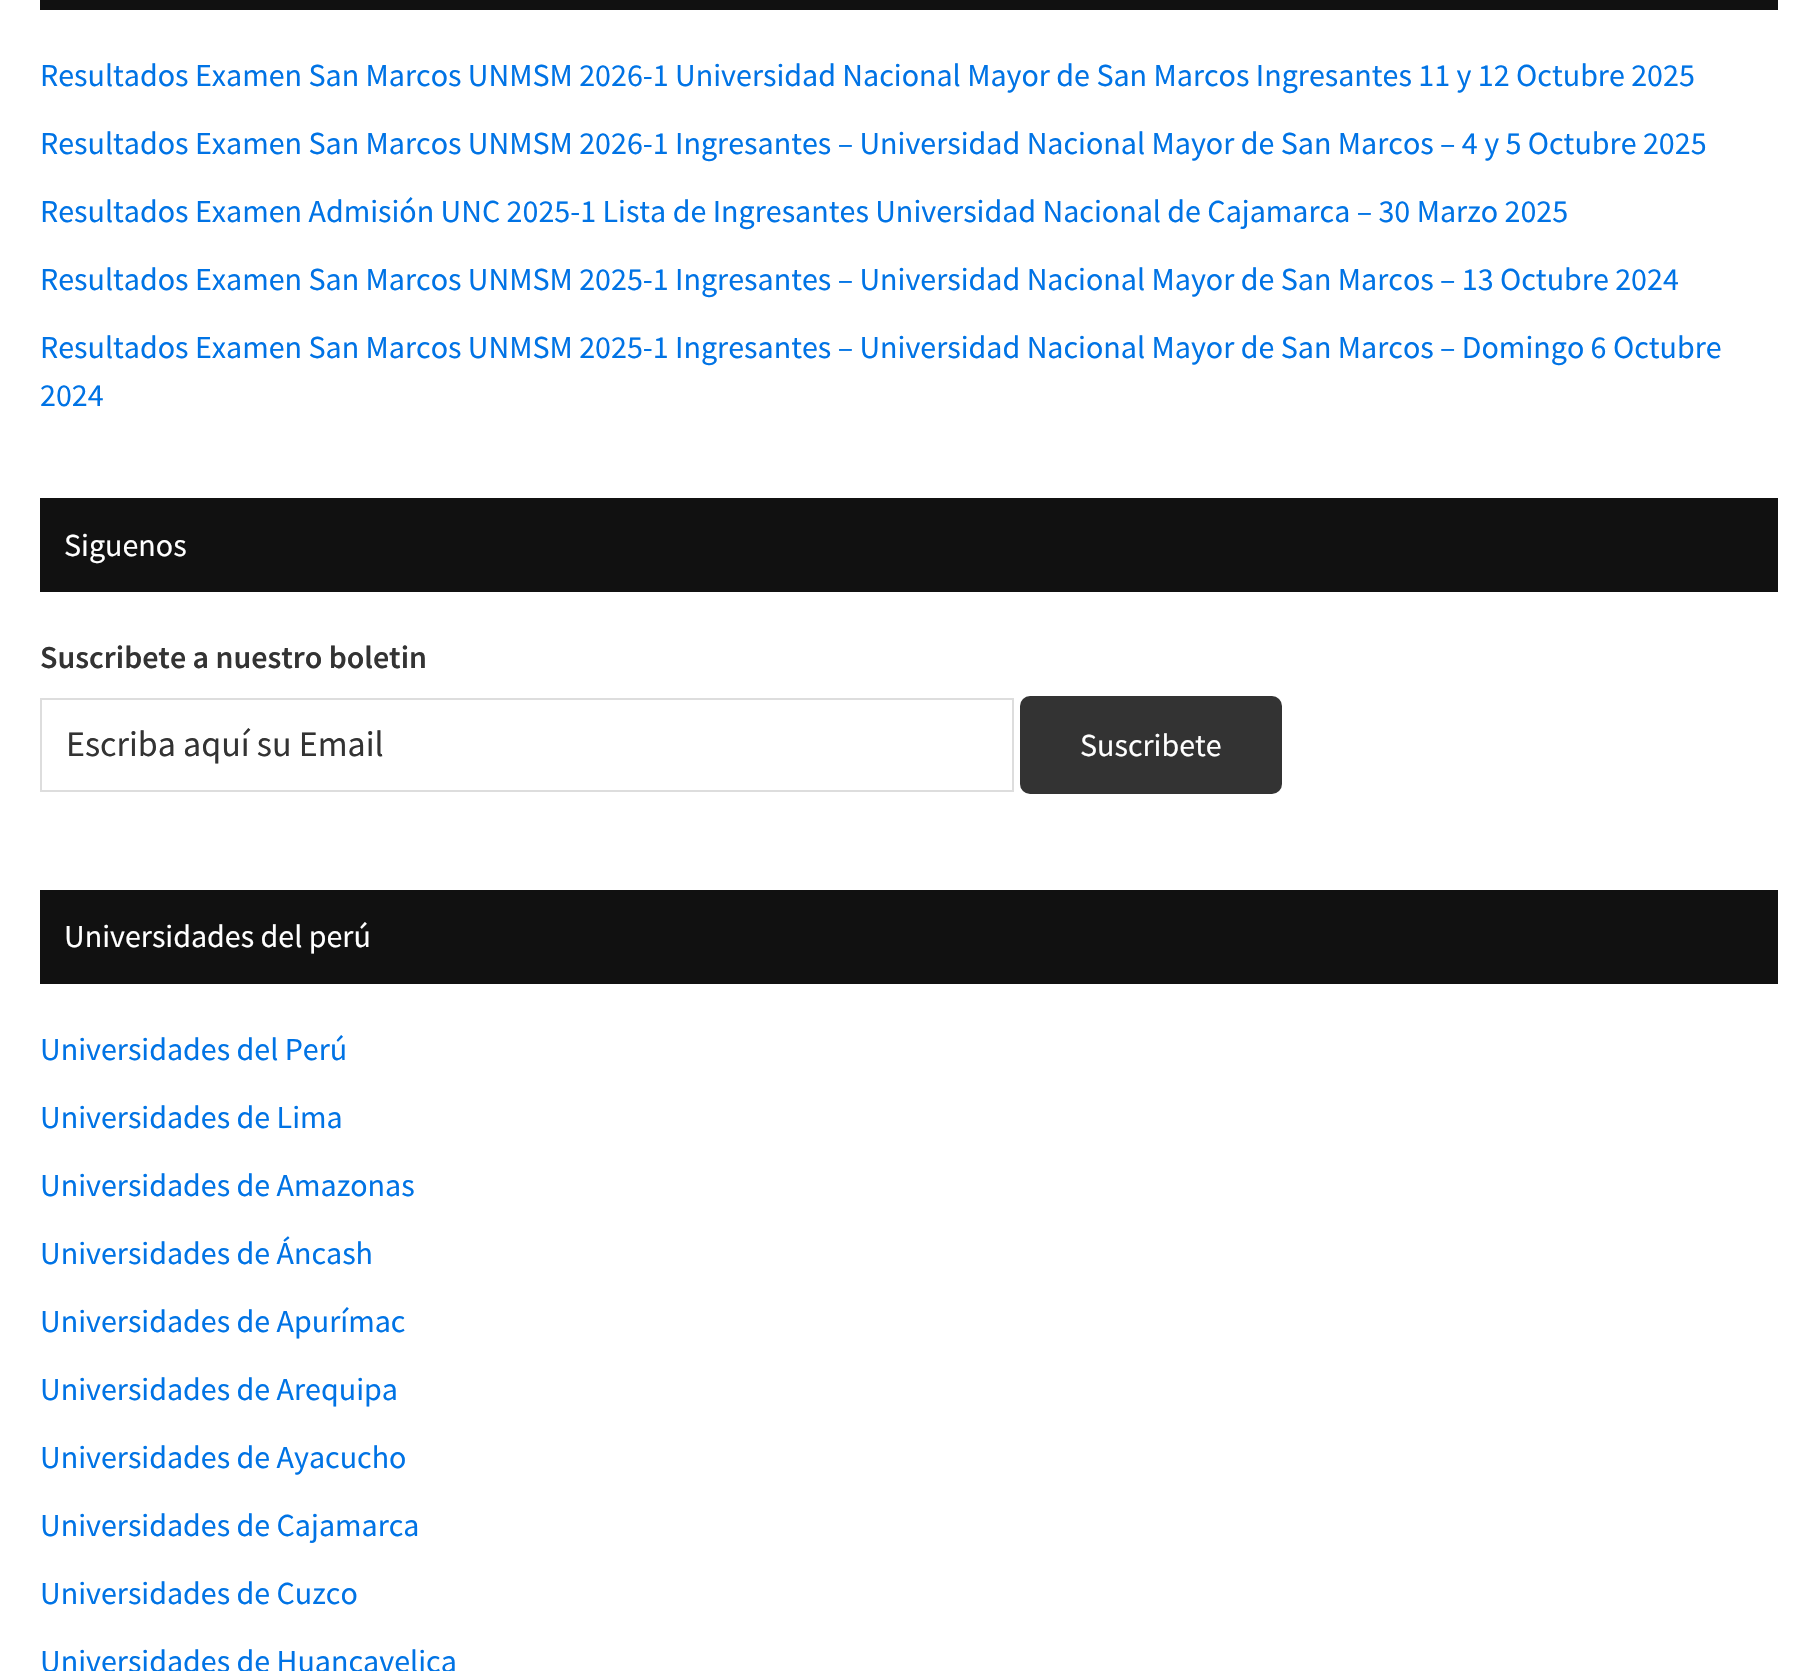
void draw(SkCanvas* c) {
SkPaint p;
p.setAntiAlias(true);
auto F=[&](const char* family, int weight, float size, bool italic = false){SkFontStyle style(weight, SkFontStyle::kNormal_Width,italic ? SkFontStyle::kItalic_Slant : SkFontStyle::kUpright_Slant);SkFont result(fontMgr->matchFamilyStyle(family, style), size);result.setSubpixel(true);return result;};
auto T=[&](const char* s, float x, float y, const SkFont& font){c->drawString(s, x, y, font, p);};
auto R=[&](float x, float y, float w, float h){c->drawRect(SkRect::MakeXYWH(x, y, w, h), p);};
auto Q=[&](float x, float y, float w, float h, float radius){c->drawRoundRect(SkRect::MakeXYWH(x, y, w, h), radius, radius, p);};
c->clear(0xffffffff);
p.setColor(0xff111111);
R(40,0,1738,10);
auto f1 = F("Source Sans Pro",400,32);
p.setColor(0xff0073e5);
T("Resultados Examen San Marcos UNMSM 2026-1 Universidad Nacional Mayor de San Marcos Ingresantes 11 y 12 Octubre 2025",40,86,f1);
T("Resultados Examen San Marcos UNMSM 2026-1 Ingresantes – Universidad Nacional Mayor de San Marcos – 4 y 5 Octubre 2025",40,154,f1);
T("Resultados Examen Admisión UNC 2025-1 Lista de Ingresantes Universidad Nacional de Cajamarca – 30 Marzo 2025",40,222,f1);
T("Resultados Examen San Marcos UNMSM 2025-1 Ingresantes – Universidad Nacional Mayor de San Marcos – 13 Octubre 2024",40,290,f1);
T("Resultados Examen San Marcos UNMSM 2025-1 Ingresantes – Universidad Nacional Mayor de San Marcos – Domingo 6 Octubre",40,358,f1);
T("2024",40,406,f1);
p.setColor(0xff111111);
R(40,498,1738,94);
p.setColor(0xffffffff);
T("Siguenos",64,556,f1);
auto f2 = F("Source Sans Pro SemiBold",600,32);
p.setColor(0xff333333);
T("Suscribete a nuestro boletin",40,668,f2);
p.setStroke(true);
p.setStrokeWidth(2);
p.setColor(0xffdddddd);
c->drawRect(SkRect::MakeXYWH(41,699,972,92),p);
auto f3 = F("Source Sans Pro",400,36);
p.setStroke(false);
p.setColor(0xff333333);
T("Escriba aquí su Email",66,756,f3);
Q(1020,696,262,98,10);
p.setColor(0xffffffff);
T("Suscribete",1080,756,f1);
p.setColor(0xff111111);
R(40,890,1738,94);
p.setColor(0xffffffff);
T("Universidades del perú",64,947,f1);
p.setColor(0xff0073e5);
T("Universidades del Perú",40,1060,f1);
T("Universidades de Lima",40,1128,f1);
T("Universidades de Amazonas",40,1196,f1);
T("Universidades de Áncash",40,1264,f1);
T("Universidades de Apurímac",40,1332,f1);
T("Universidades de Arequipa",40,1400,f1);
T("Universidades de Ayacucho",40,1468,f1);
T("Universidades de Cajamarca",40,1536,f1);
T("Universidades de Cuzco",40,1604,f1);
T("Universidades de Huancavelica",40,1672,f1);
}
